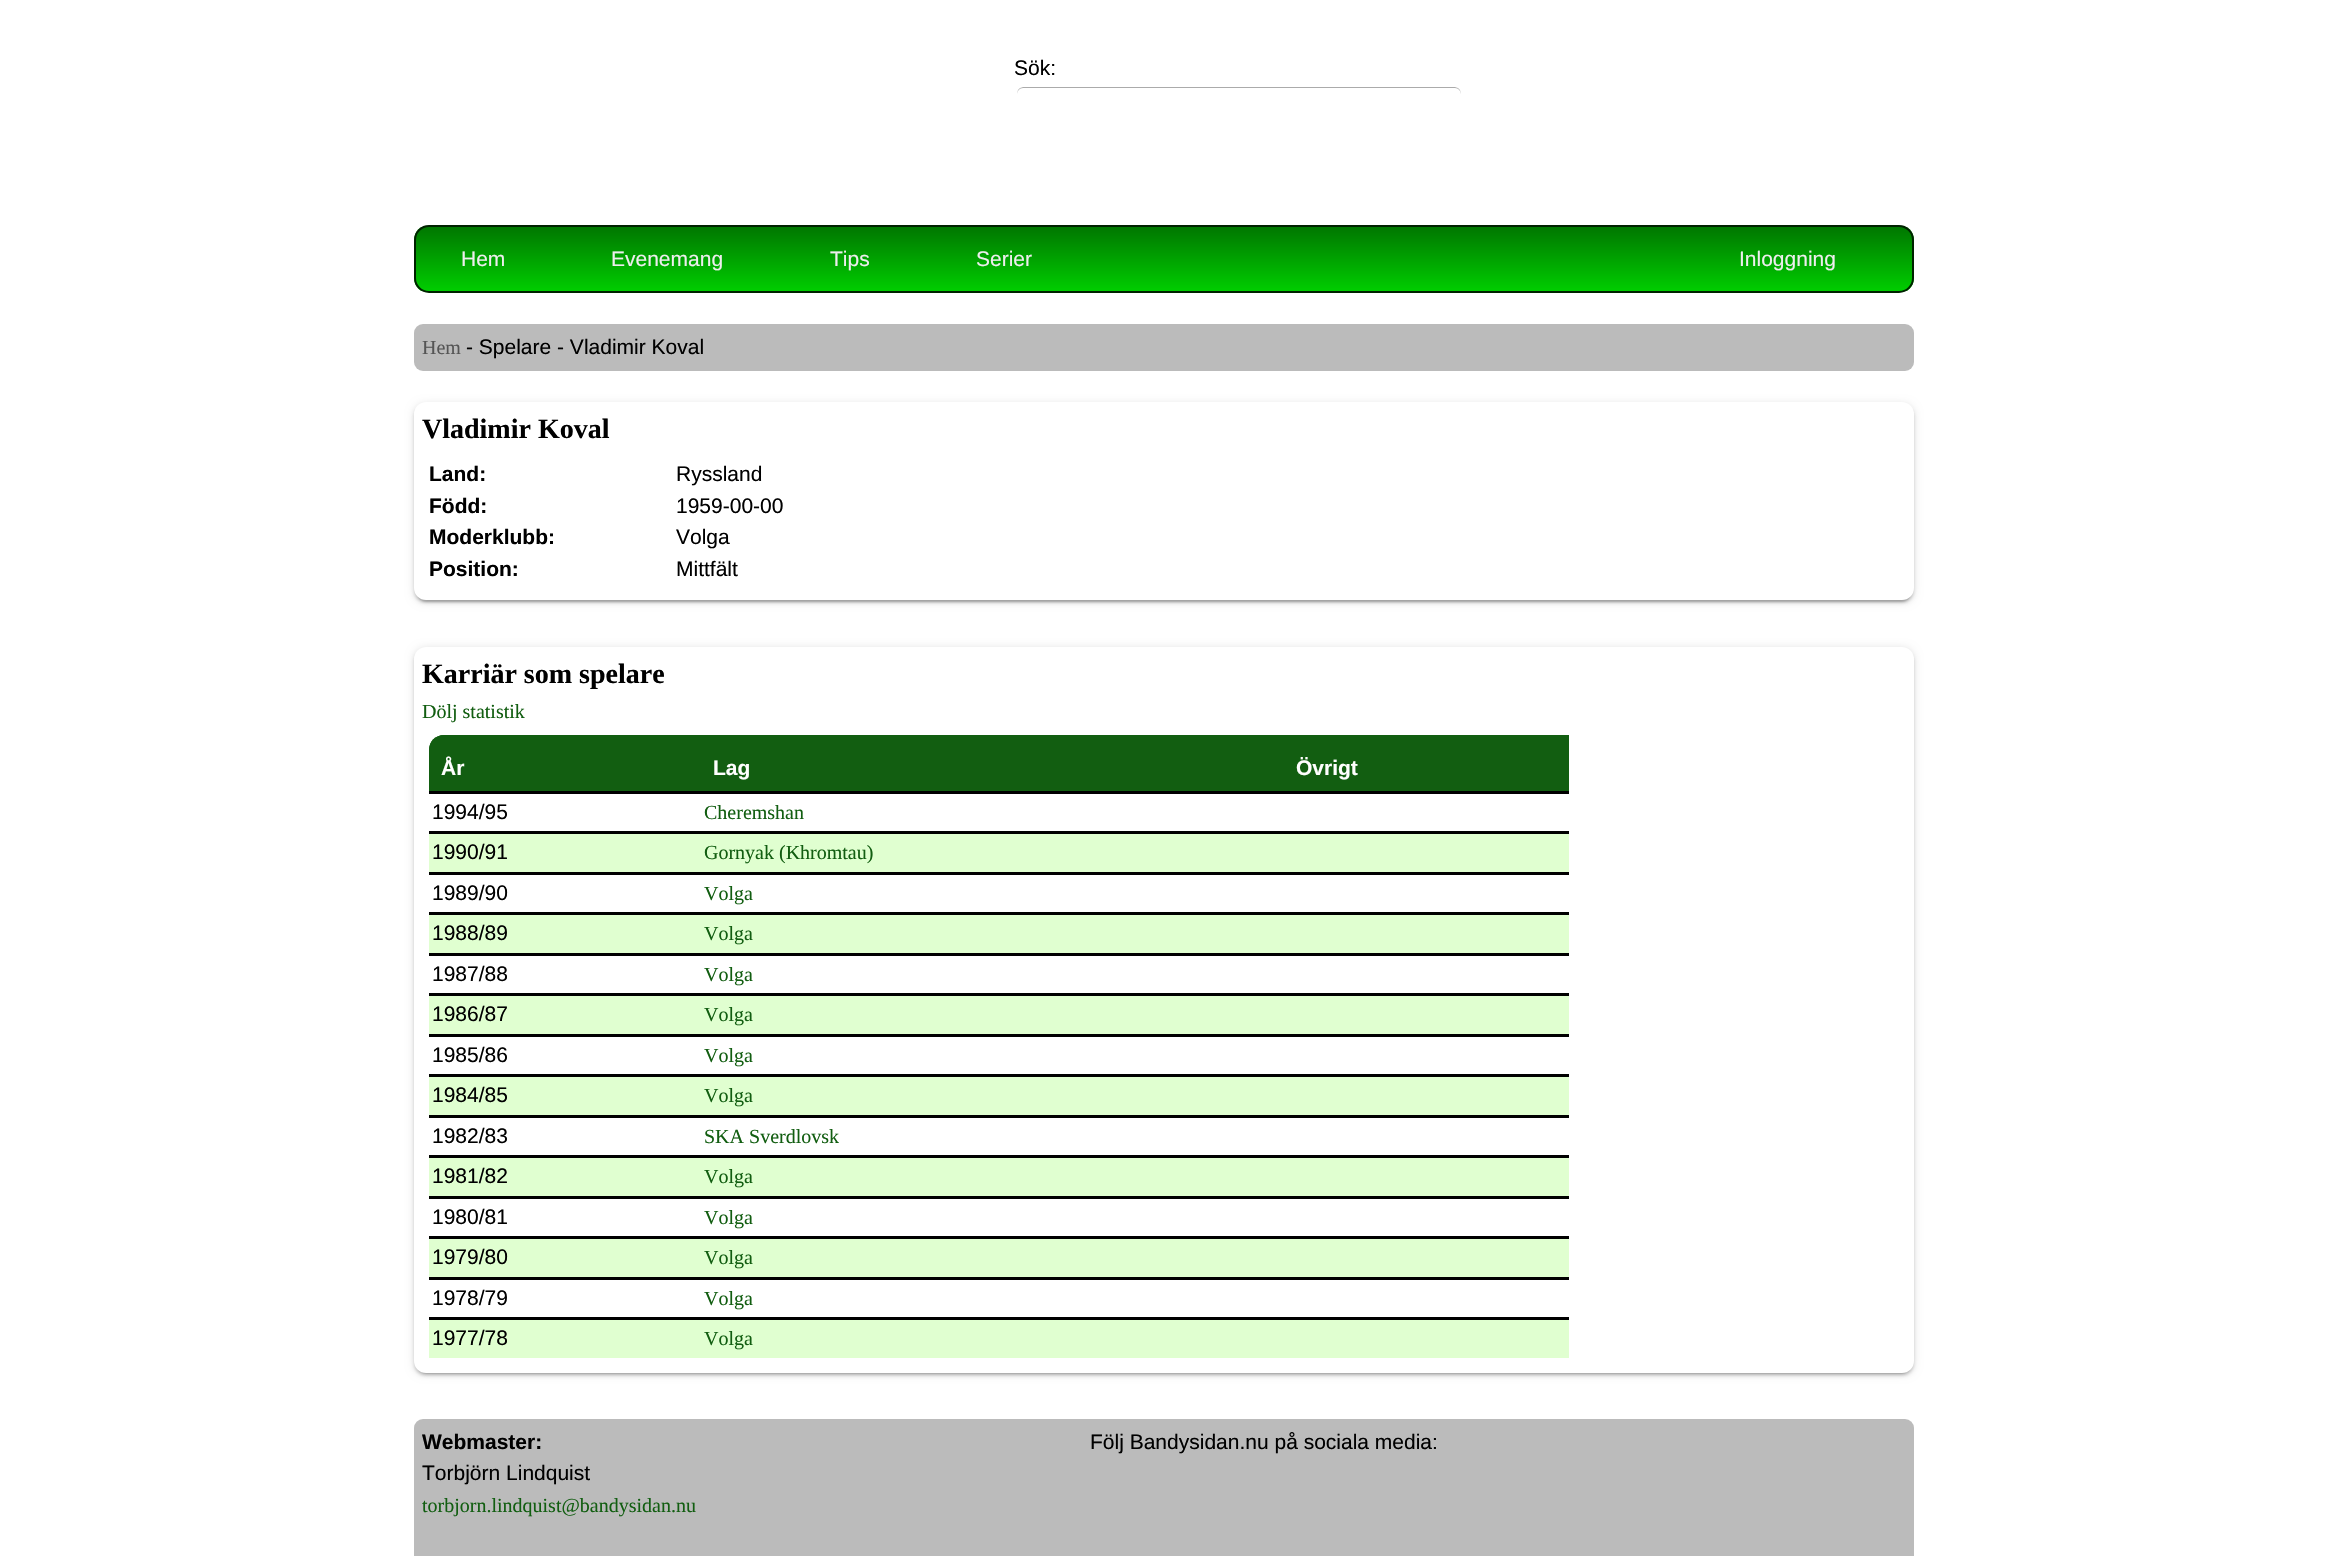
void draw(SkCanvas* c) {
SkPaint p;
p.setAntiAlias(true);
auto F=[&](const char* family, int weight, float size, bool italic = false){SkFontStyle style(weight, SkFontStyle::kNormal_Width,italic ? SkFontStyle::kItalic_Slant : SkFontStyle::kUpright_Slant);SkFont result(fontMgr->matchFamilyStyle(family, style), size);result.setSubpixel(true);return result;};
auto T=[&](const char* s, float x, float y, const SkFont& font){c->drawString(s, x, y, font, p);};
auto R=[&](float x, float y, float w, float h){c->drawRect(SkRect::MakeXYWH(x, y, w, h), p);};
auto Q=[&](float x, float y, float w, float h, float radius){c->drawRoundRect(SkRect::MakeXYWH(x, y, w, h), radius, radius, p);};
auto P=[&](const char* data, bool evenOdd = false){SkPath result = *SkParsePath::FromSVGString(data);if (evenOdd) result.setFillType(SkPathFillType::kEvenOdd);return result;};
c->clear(0xffffffff);
auto f1 = F("Liberation Sans",400,21);
p.setColor(0xff000000);
T("Sök:",1014,75,f1);
p.setColor(0xffababab);
c->drawPath(P("M1023 88h432c3 0 6 3 6 6v-1c0-3-3-6-6-6h-432c-3 0-6 3-6 6v1c0-3 3-6 6-6z"),p);
p.setStroke(true);
p.setStrokeWidth(3);
p.setColor(0xffffffff);
c->drawRoundRect(SkRect::MakeXYWH(1015.5,85.5,447,51),7.5,7.5,p);
c->save();
c->clipPath(P("M429 225h1470c8.5 0 15 6.5 15 15v38c0 8.5-6.5 15-15 15h-1470c-8.5 0-15-6.5-15-15v-38c0-8.5 6.5-15 15-15z"),true);
p.setStroke(false);
{
const SkColor colors[] = {0xff007700,0xff00cd00};
const float stops[] = {0,1};
const SkPoint ends[] = {{416,227}, {416,291}};
p.setShader(SkGradientShader::MakeLinear(ends, colors, stops, 2, SkTileMode::kClamp));
p.setAlpha(255);
}
R(414,227,1500,64);
c->restore();
p.setStroke(true);
p.setStrokeWidth(2);
p.setShader(nullptr);
p.setColor(0xff002200);
c->drawRoundRect(SkRect::MakeXYWH(415,226,1498,66),14,14,p);
p.setStroke(false);
p.setColor(0xffeeeeee);
T("Hem",461,266,f1);
T("Evenemang",611,266,f1);
T("Tips",830,266,f1);
T("Serier",976,266,f1);
T("Inloggning",1739,266,f1);
p.setColor(0xffbbbbbb);
Q(414,324,1500,47,9);
auto f2 = F("Liberation Serif",400,20);
p.setColor(0xff555555);
T("Hem",422,354,f2);
p.setColor(0xff000000);
T("- Spelare - Vladimir Koval",466,354,f1);
p.setColor(0x33000000);
p.setMaskFilter(SkMaskFilter::MakeBlur(kNormal_SkBlurStyle, 1));
c->drawRoundRect(SkRect::MakeXYWH(417,410,1494,192),9,9,p);
p.setMaskFilter(nullptr);
p.setColor(0x1f000000);
p.setMaskFilter(SkMaskFilter::MakeBlur(kNormal_SkBlurStyle, 4));
c->drawRoundRect(SkRect::MakeXYWH(414,404,1500,198),12,12,p);
p.setMaskFilter(nullptr);
p.setColor(0x24000000);
p.setMaskFilter(SkMaskFilter::MakeBlur(kNormal_SkBlurStyle, 1.5));
c->drawRoundRect(SkRect::MakeXYWH(414,405,1500,198),12,12,p);
p.setMaskFilter(nullptr);
p.setColor(0xffffffff);
Q(414,402,1500,198,12);
auto f3 = F("Liberation Serif",700,28);
p.setColor(0xff000000);
T("Vladimir Koval",422,438,f3);
auto f4 = F("Liberation Sans",700,21);
T("Land:",429,481,f4);
T("Ryssland",676,481,f1);
T("Född:",429,513,f4);
T("1959-00-00",676,513,f1);
T("Moderklubb:",429,544,f4);
T("Volga",676,544,f1);
T("Position:",429,576,f4);
T("Mittfält",676,576,f1);
p.setColor(0x33000000);
p.setMaskFilter(SkMaskFilter::MakeBlur(kNormal_SkBlurStyle, 1));
c->drawRoundRect(SkRect::MakeXYWH(417,654,1494,720),9,9,p);
p.setMaskFilter(nullptr);
p.setColor(0x1f000000);
p.setMaskFilter(SkMaskFilter::MakeBlur(kNormal_SkBlurStyle, 4));
c->drawRoundRect(SkRect::MakeXYWH(414,648,1500,726),12,12,p);
p.setMaskFilter(nullptr);
p.setColor(0x24000000);
p.setMaskFilter(SkMaskFilter::MakeBlur(kNormal_SkBlurStyle, 1.5));
c->drawRoundRect(SkRect::MakeXYWH(414,650,1500,726),12,12,p);
p.setMaskFilter(nullptr);
p.setColor(0xffffffff);
Q(414,647,1500,726,12);
p.setColor(0xff000000);
T("Karriär som spelare",422,683,f3);
p.setColor(0xff125e11);
T("Dölj statistik",422,718,f2);
c->drawPath(P("M444 735h1125v56h-1140v-41c0-8.5 6.5-15 15-15z"),p);
c->drawPath(P("M444 735h257v56h-272v-41c0-8.5 6.5-15 15-15z"),p);
p.setColor(0xffffffff);
T("År",441,775,f4);
T("Lag",713,775,f4);
T("Övrigt",1296,775,f4);
p.setColor(0xff000000);
R(429,791,1140,3);
T("1994/95",432,819,f1);
p.setColor(0xff125e11);
T("Cheremshan",704,819,f2);
p.setColor(0xff000000);
R(429,831,1140,3);
p.setColor(0xffe0ffd0);
R(429,834,1140,38);
p.setColor(0xff000000);
T("1990/91",432,859,f1);
p.setColor(0xff125e11);
T("Gornyak (Khromtau)",704,859,f2);
p.setColor(0xff000000);
R(429,872,1140,3);
T("1989/90",432,900,f1);
p.setColor(0xff125e11);
T("Volga",704,900,f2);
p.setColor(0xff000000);
R(429,912,1140,3);
p.setColor(0xffe0ffd0);
R(429,915,1140,38);
p.setColor(0xff000000);
T("1988/89",432,940,f1);
p.setColor(0xff125e11);
T("Volga",704,940,f2);
p.setColor(0xff000000);
R(429,953,1140,3);
T("1987/88",432,981,f1);
p.setColor(0xff125e11);
T("Volga",704,981,f2);
p.setColor(0xff000000);
R(429,993,1140,3);
p.setColor(0xffe0ffd0);
R(429,996,1140,38);
p.setColor(0xff000000);
T("1986/87",432,1021,f1);
p.setColor(0xff125e11);
T("Volga",704,1021,f2);
p.setColor(0xff000000);
R(429,1034,1140,3);
T("1985/86",432,1062,f1);
p.setColor(0xff125e11);
T("Volga",704,1062,f2);
p.setColor(0xff000000);
R(429,1074,1140,3);
p.setColor(0xffe0ffd0);
R(429,1077,1140,38);
p.setColor(0xff000000);
T("1984/85",432,1102,f1);
p.setColor(0xff125e11);
T("Volga",704,1102,f2);
p.setColor(0xff000000);
R(429,1115,1140,3);
T("1982/83",432,1143,f1);
p.setColor(0xff125e11);
T("SKA Sverdlovsk",704,1143,f2);
p.setColor(0xff000000);
R(429,1155,1140,3);
p.setColor(0xffe0ffd0);
R(429,1158,1140,38);
p.setColor(0xff000000);
T("1981/82",432,1183,f1);
p.setColor(0xff125e11);
T("Volga",704,1183,f2);
p.setColor(0xff000000);
R(429,1196,1140,3);
T("1980/81",432,1224,f1);
p.setColor(0xff125e11);
T("Volga",704,1224,f2);
p.setColor(0xff000000);
R(429,1236,1140,3);
p.setColor(0xffe0ffd0);
R(429,1239,1140,38);
p.setColor(0xff000000);
T("1979/80",432,1264,f1);
p.setColor(0xff125e11);
T("Volga",704,1264,f2);
p.setColor(0xff000000);
R(429,1277,1140,3);
T("1978/79",432,1305,f1);
p.setColor(0xff125e11);
T("Volga",704,1305,f2);
p.setColor(0xff000000);
R(429,1317,1140,3);
p.setColor(0xffe0ffd0);
R(429,1320,1140,38);
p.setColor(0xff000000);
T("1977/78",432,1345,f1);
p.setColor(0xff125e11);
T("Volga",704,1345,f2);
p.setColor(0xffbbbbbb);
Q(414,1419,1500,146,9);
p.setColor(0xff000000);
T("Webmaster:",422,1449,f4);
T("Torbjörn Lindquist",422,1480,f1);
p.setColor(0xff125e11);
T("torbjorn.lindquist@bandysidan.nu",422,1512,f2);
p.setColor(0xff000000);
T("Följ Bandysidan.nu på sociala media:",1090,1449,f1);
}
